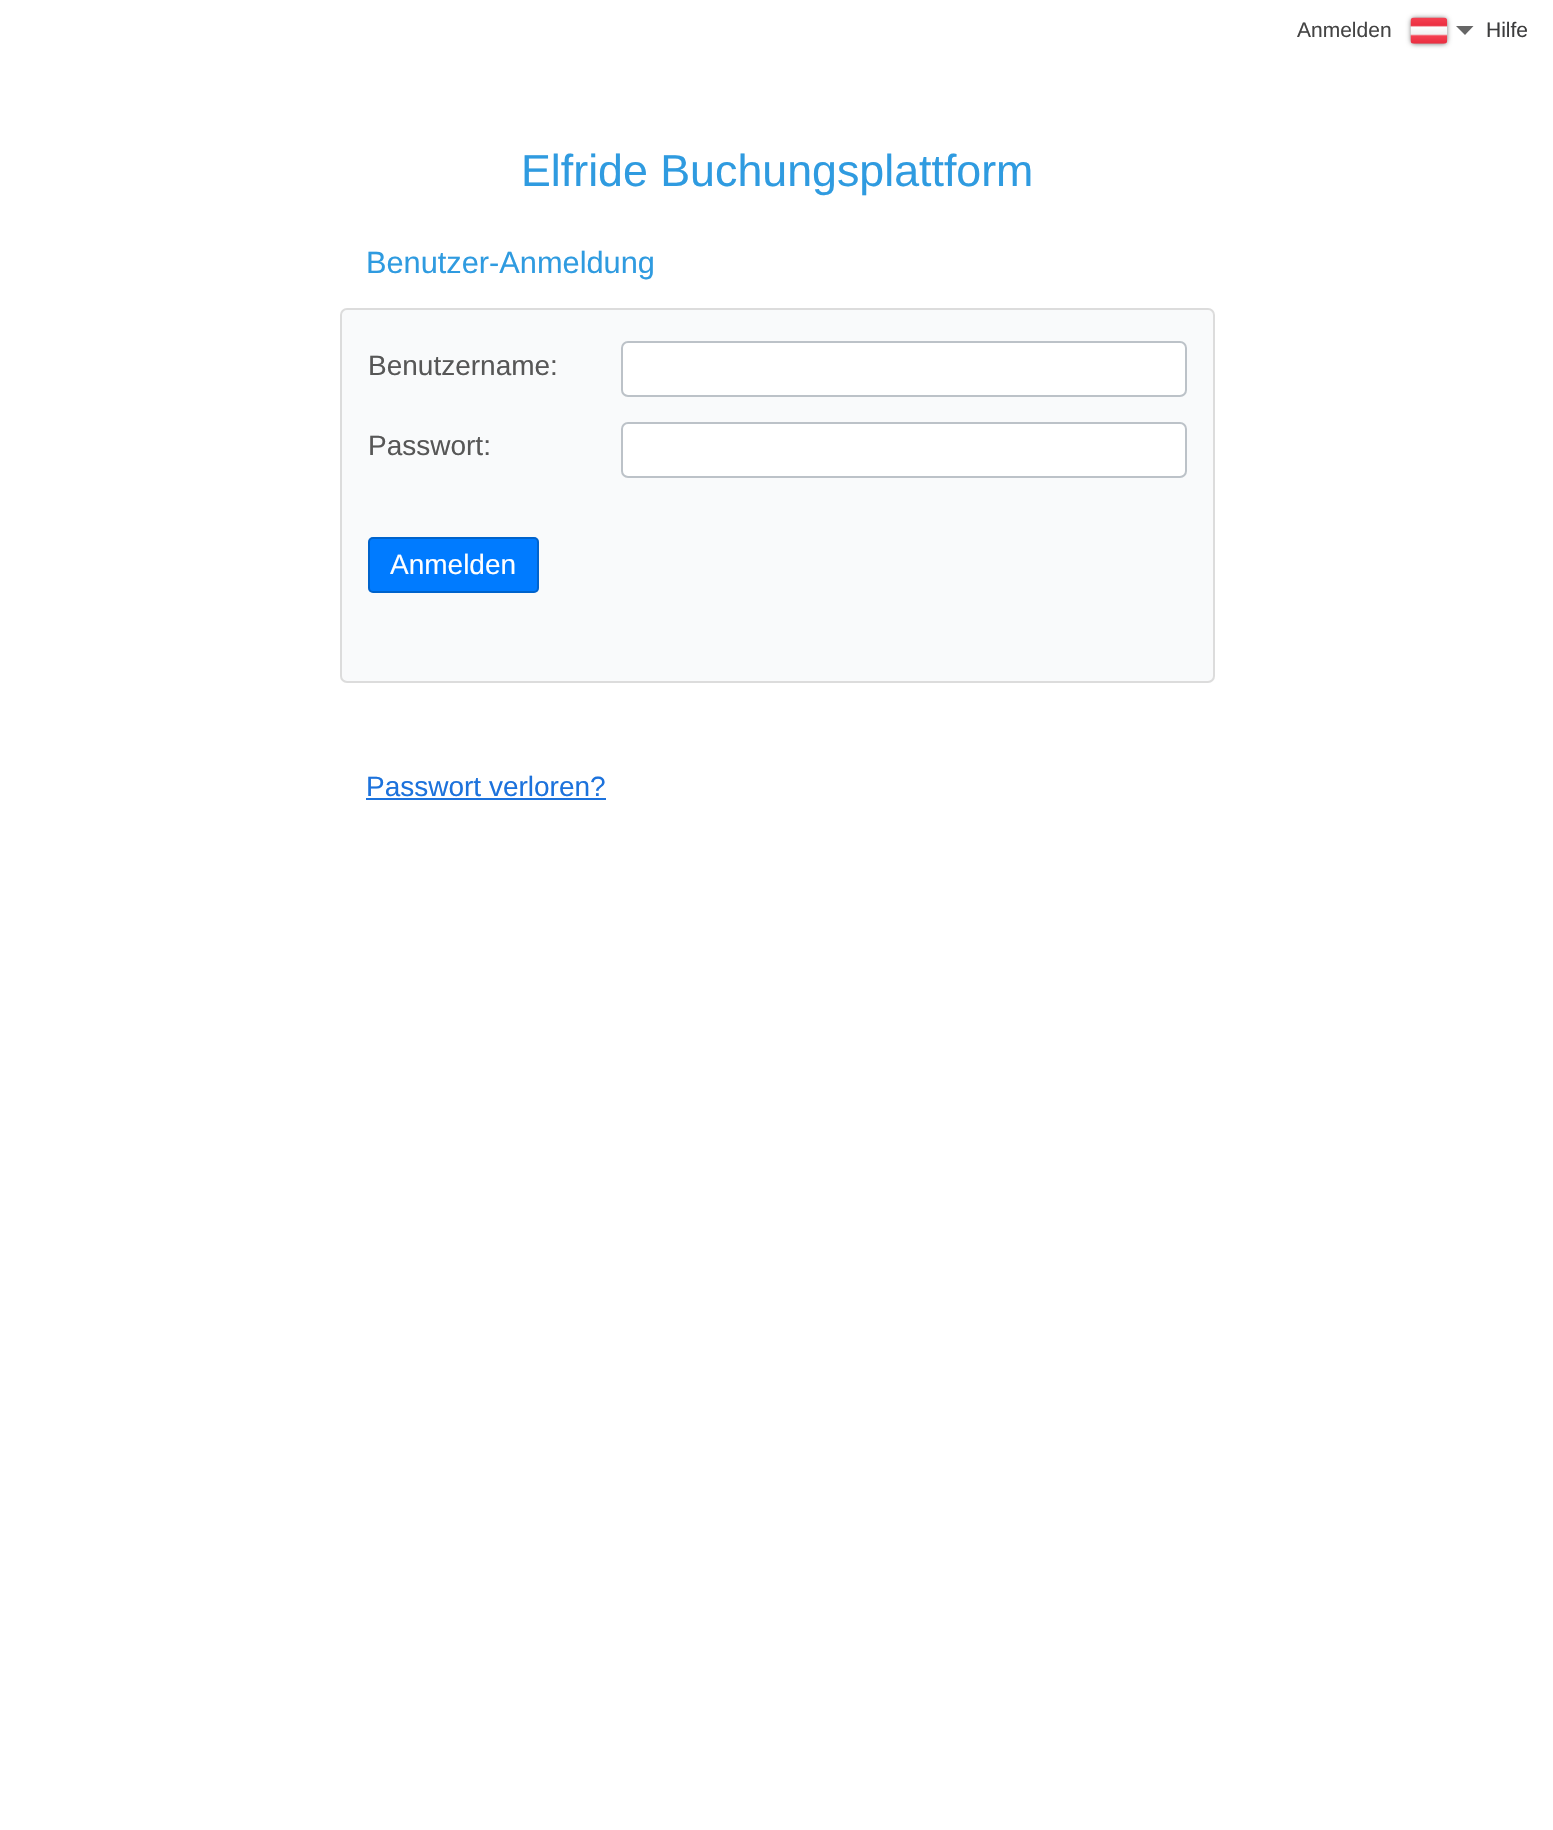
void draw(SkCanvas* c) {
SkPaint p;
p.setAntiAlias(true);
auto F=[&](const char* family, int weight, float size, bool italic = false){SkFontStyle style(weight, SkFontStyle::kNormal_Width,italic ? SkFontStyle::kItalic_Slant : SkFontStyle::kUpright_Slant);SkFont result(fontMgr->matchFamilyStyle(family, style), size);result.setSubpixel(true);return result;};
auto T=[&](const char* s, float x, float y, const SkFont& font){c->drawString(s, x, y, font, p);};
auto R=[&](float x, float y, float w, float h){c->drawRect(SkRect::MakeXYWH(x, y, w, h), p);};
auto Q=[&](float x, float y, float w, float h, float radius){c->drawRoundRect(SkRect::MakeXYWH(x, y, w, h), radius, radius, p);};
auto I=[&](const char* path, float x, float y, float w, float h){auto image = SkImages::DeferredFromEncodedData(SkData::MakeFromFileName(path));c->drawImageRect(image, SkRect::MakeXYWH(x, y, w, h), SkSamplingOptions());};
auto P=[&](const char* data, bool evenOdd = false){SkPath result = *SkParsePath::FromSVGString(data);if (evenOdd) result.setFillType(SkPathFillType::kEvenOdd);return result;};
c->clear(0xffffffff);
auto f1 = F("Liberation Sans",400,21);
p.setColor(0xff444444);
T("Anmelden",1297,37,f1);
p.setColor(0xff777777);
p.setMaskFilter(SkMaskFilter::MakeBlur(kNormal_SkBlurStyle, 2.5));
c->drawRoundRect(SkRect::MakeXYWH(1411,18,36,26),4,4,p);
p.setMaskFilter(nullptr);
I("1.png",1410,17,38,27);
p.setColor(0xff666666);
c->drawPath(P("M1456 26h17.5l-8.5 9z"),p);
p.setColor(0xff3c3c3d);
T("Hilfe",1486,37,f1);
auto f2 = F("Liberation Sans",400,44.75);
p.setColor(0xff2f9be0);
T("Elfride Buchungsplattform",521,186,f2);
auto f3 = F("Liberation Sans",400,30.75);
T("Benutzer-Anmeldung",366,273,f3);
p.setColor(0xfff9fafb);
c->drawRoundRect(SkRect::MakeXYWH(341,309,873,373),6,6,p);
p.setStroke(true);
p.setStrokeWidth(2);
p.setColor(0xffdcdcdc);
c->drawRoundRect(SkRect::MakeXYWH(341,309,873,373),6,6,p);
auto f4 = F("Liberation Sans",400,28);
p.setStroke(false);
p.setColor(0xff575757);
T("Benutzername:",368,375,f4);
p.setColor(0xffffffff);
c->drawRoundRect(SkRect::MakeXYWH(622,342,564,54),6,6,p);
p.setStroke(true);
p.setColor(0xffbcc2c8);
c->drawRoundRect(SkRect::MakeXYWH(622,342,564,54),6,6,p);
p.setStroke(false);
p.setColor(0xff575757);
T("Passwort:",368,455,f4);
p.setColor(0xffffffff);
c->drawRoundRect(SkRect::MakeXYWH(622,423,564,54),6,6,p);
p.setStroke(true);
p.setColor(0xffbcc2c8);
c->drawRoundRect(SkRect::MakeXYWH(622,423,564,54),6,6,p);
p.setStroke(false);
p.setColor(0xff007bff);
Q(368,537,171,56,5);
p.setStroke(true);
p.setColor(0x33000000);
c->drawRoundRect(SkRect::MakeXYWH(369,538,169,54),4,4,p);
p.setStroke(false);
p.setColor(0xffffffff);
T("Anmelden",390,574,f4);
p.setColor(0xff1c72dc);
T("Passwort verloren?",366,796,f4);
R(366,798,240,2);
}
